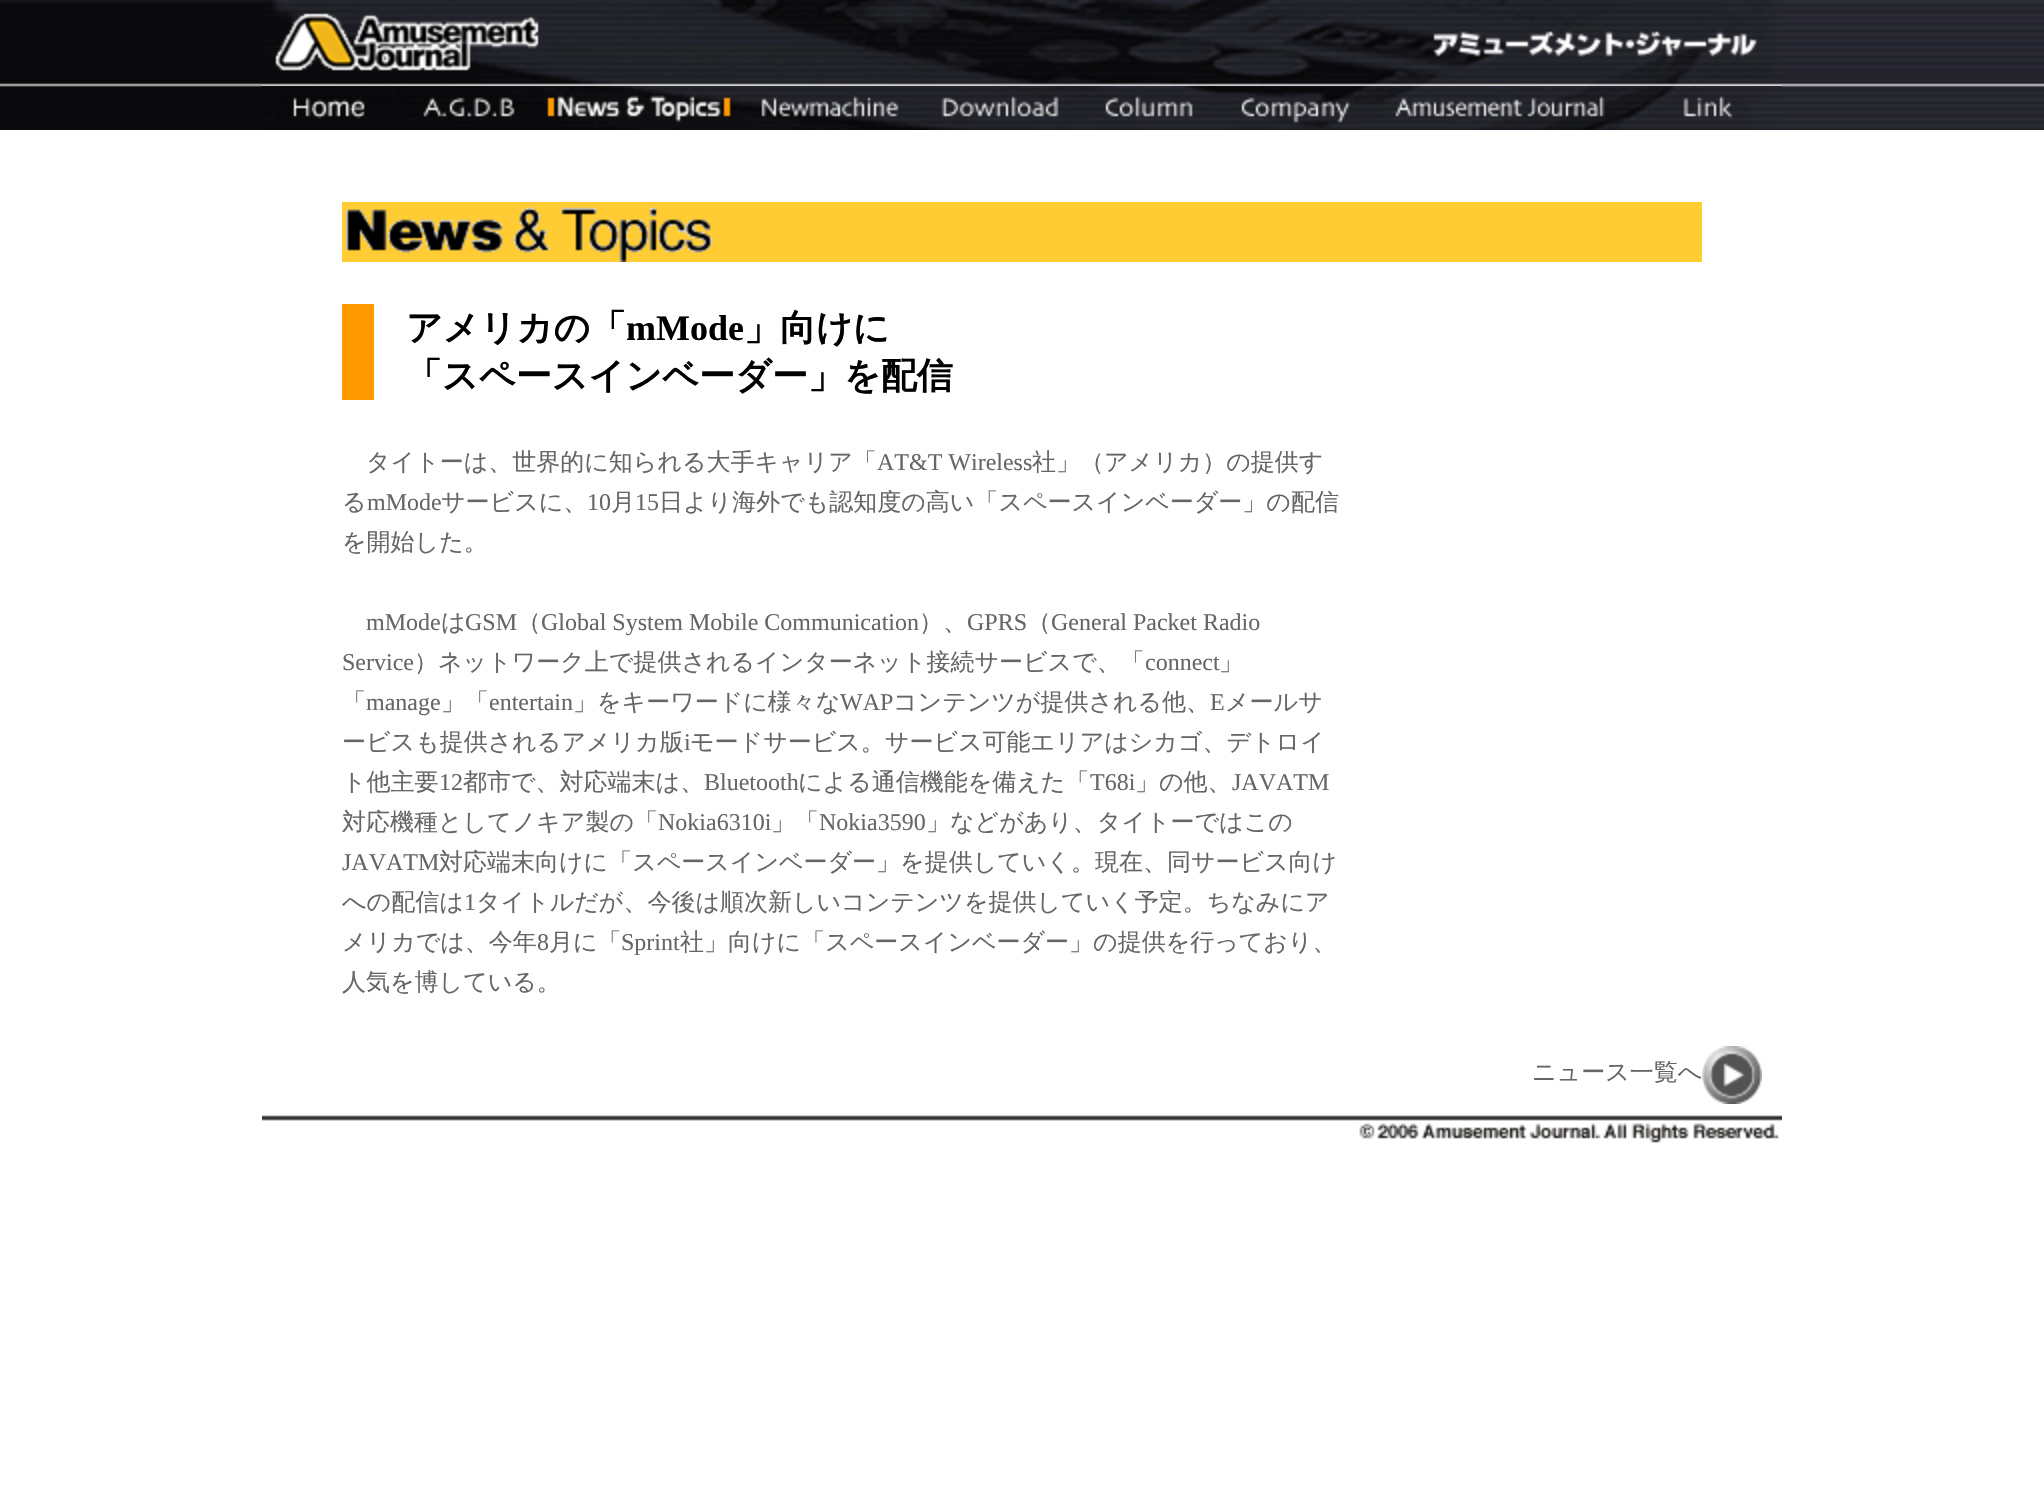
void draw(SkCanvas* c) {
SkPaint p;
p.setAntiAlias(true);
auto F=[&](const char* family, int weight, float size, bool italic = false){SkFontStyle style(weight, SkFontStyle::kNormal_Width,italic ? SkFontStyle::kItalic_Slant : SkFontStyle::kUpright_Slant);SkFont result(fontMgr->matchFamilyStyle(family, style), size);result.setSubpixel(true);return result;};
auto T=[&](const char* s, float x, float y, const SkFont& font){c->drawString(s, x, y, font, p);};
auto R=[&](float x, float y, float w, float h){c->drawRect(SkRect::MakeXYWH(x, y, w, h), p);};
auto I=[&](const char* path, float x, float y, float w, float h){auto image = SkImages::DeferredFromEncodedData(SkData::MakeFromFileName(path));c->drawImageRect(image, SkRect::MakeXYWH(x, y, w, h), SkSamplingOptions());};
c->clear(0xffffffff);
I("1.png",0,0,262,130);
I("2.png",258,0,4,2);
I("3.png",262,0,288,86);
I("4.png",550,0,1232,86);
I("5.png",262,86,134,44);
I("6.png",396,86,148,44);
I("7.png",544,86,194,44);
I("8.png",738,86,180,44);
I("9.png",918,86,162,44);
I("10.png",1080,86,138,44);
I("11.png",1218,86,154,44);
I("12.png",1372,86,264,44);
I("13.png",1636,86,146,44);
I("14.png",1782,0,262,130);
p.setColor(0xffffcc33);
R(342,202,1360,60);
I("15.png",345,207,368,55);
p.setColor(0xffff9900);
R(342,304,32,96);
auto f1 = F("WenQuanYi Zen Hei",700,36);
p.setColor(0xff000000);
T("アメリカの「",406,340,f1);
auto f2 = F("Liberation Serif",700,36);
T("mMode",626,340,f2);
T("」向けに",744,340,f1);
T("「スペースインベーダー」を配信",406,388,f1);
auto f3 = F("WenQuanYi Zen Hei",500,24);
p.setColor(0xff666666);
T("タイトーは、世界的に知られる大手キャリア「",366,470,f3);
auto f4 = F("Liberation Serif",400,24);
T("AT&T Wireless",877,470,f4);
T("社」（アメリカ）の提供す",1032,470,f3);
T("る",342,510,f3);
T("mMode",367,510,f4);
T("サービスに、",441,510,f3);
T("10",587,510,f4);
T("月",611,510,f3);
T("15",635,510,f4);
T("日より海外でも認知度の高い「スペースインベーダー」の配信",659,510,f3);
T("を開始した。",342,550,f3);
T("mMode",366,630,f4);
T("は",441,630,f3);
T("GSM",465,630,f4);
T("（",517,630,f3);
T("Global System Mobile Communication",541,630,f4);
T("）、",919,630,f3);
T("GPRS",967,630,f4);
T("（",1027,630,f3);
T("General Packet Radio",1051,630,f4);
T("Service",342,670,f4);
T("）ネットワーク上で提供されるインターネット接続サービスで、「",414,670,f3);
T("connect",1145,670,f4);
T("」",1219,670,f3);
T("「",342,710,f3);
T("manage",366,710,f4);
T("」「",441,710,f3);
T("entertain",489,710,f4);
T("」をキーワードに様々な",573,710,f3);
T("WAP",840,710,f4);
T("コンテンツが提供される他、",893,710,f3);
T("E",1210,710,f4);
T("メールサ",1225,710,f3);
T("ービスも提供されるアメリカ版",342,750,f3);
T("i",684,750,f4);
T("モードサービス。サービス可能エリアはシカゴ、デトロイ",690,750,f3);
T("ト他主要",342,790,f3);
T("12",439,790,f4);
T("都市で、対応端末は、",463,790,f3);
T("Bluetooth",704,790,f4);
T("による通信機能を備えた「",798,790,f3);
T("T68i",1090,790,f4);
T("」の他、",1135,790,f3);
T("JAVATM",1232,790,f4);
T("対応機種としてノキア製の「",342,830,f3);
T("Nokia6310i",658,830,f4);
T("」「",771,830,f3);
T("Nokia3590",819,830,f4);
T("」などがあり、タイトーではこの",926,830,f3);
T("JAVATM",342,870,f4);
T("対応端末向けに「スペースインベーダー」を提供していく。現在、同サービス向け",439,870,f3);
T("への配信は",342,910,f3);
T("1",464,910,f4);
T("タイトルだが、今後は順次新しいコンテンツを提供していく予定。ちなみにア",476,910,f3);
T("メリカでは、今年",342,950,f3);
T("8",537,950,f4);
T("月に「",549,950,f3);
T("Sprint",621,950,f4);
T("社」向けに「スペースインベーダー」の提供を行っており、",680,950,f3);
T("人気を博している。",342,990,f3);
T("ニュース一覧へ",1532,1080,f3);
I("16.png",1702,1046,60,58);
I("17.png",262,1115,1520,28);
}
